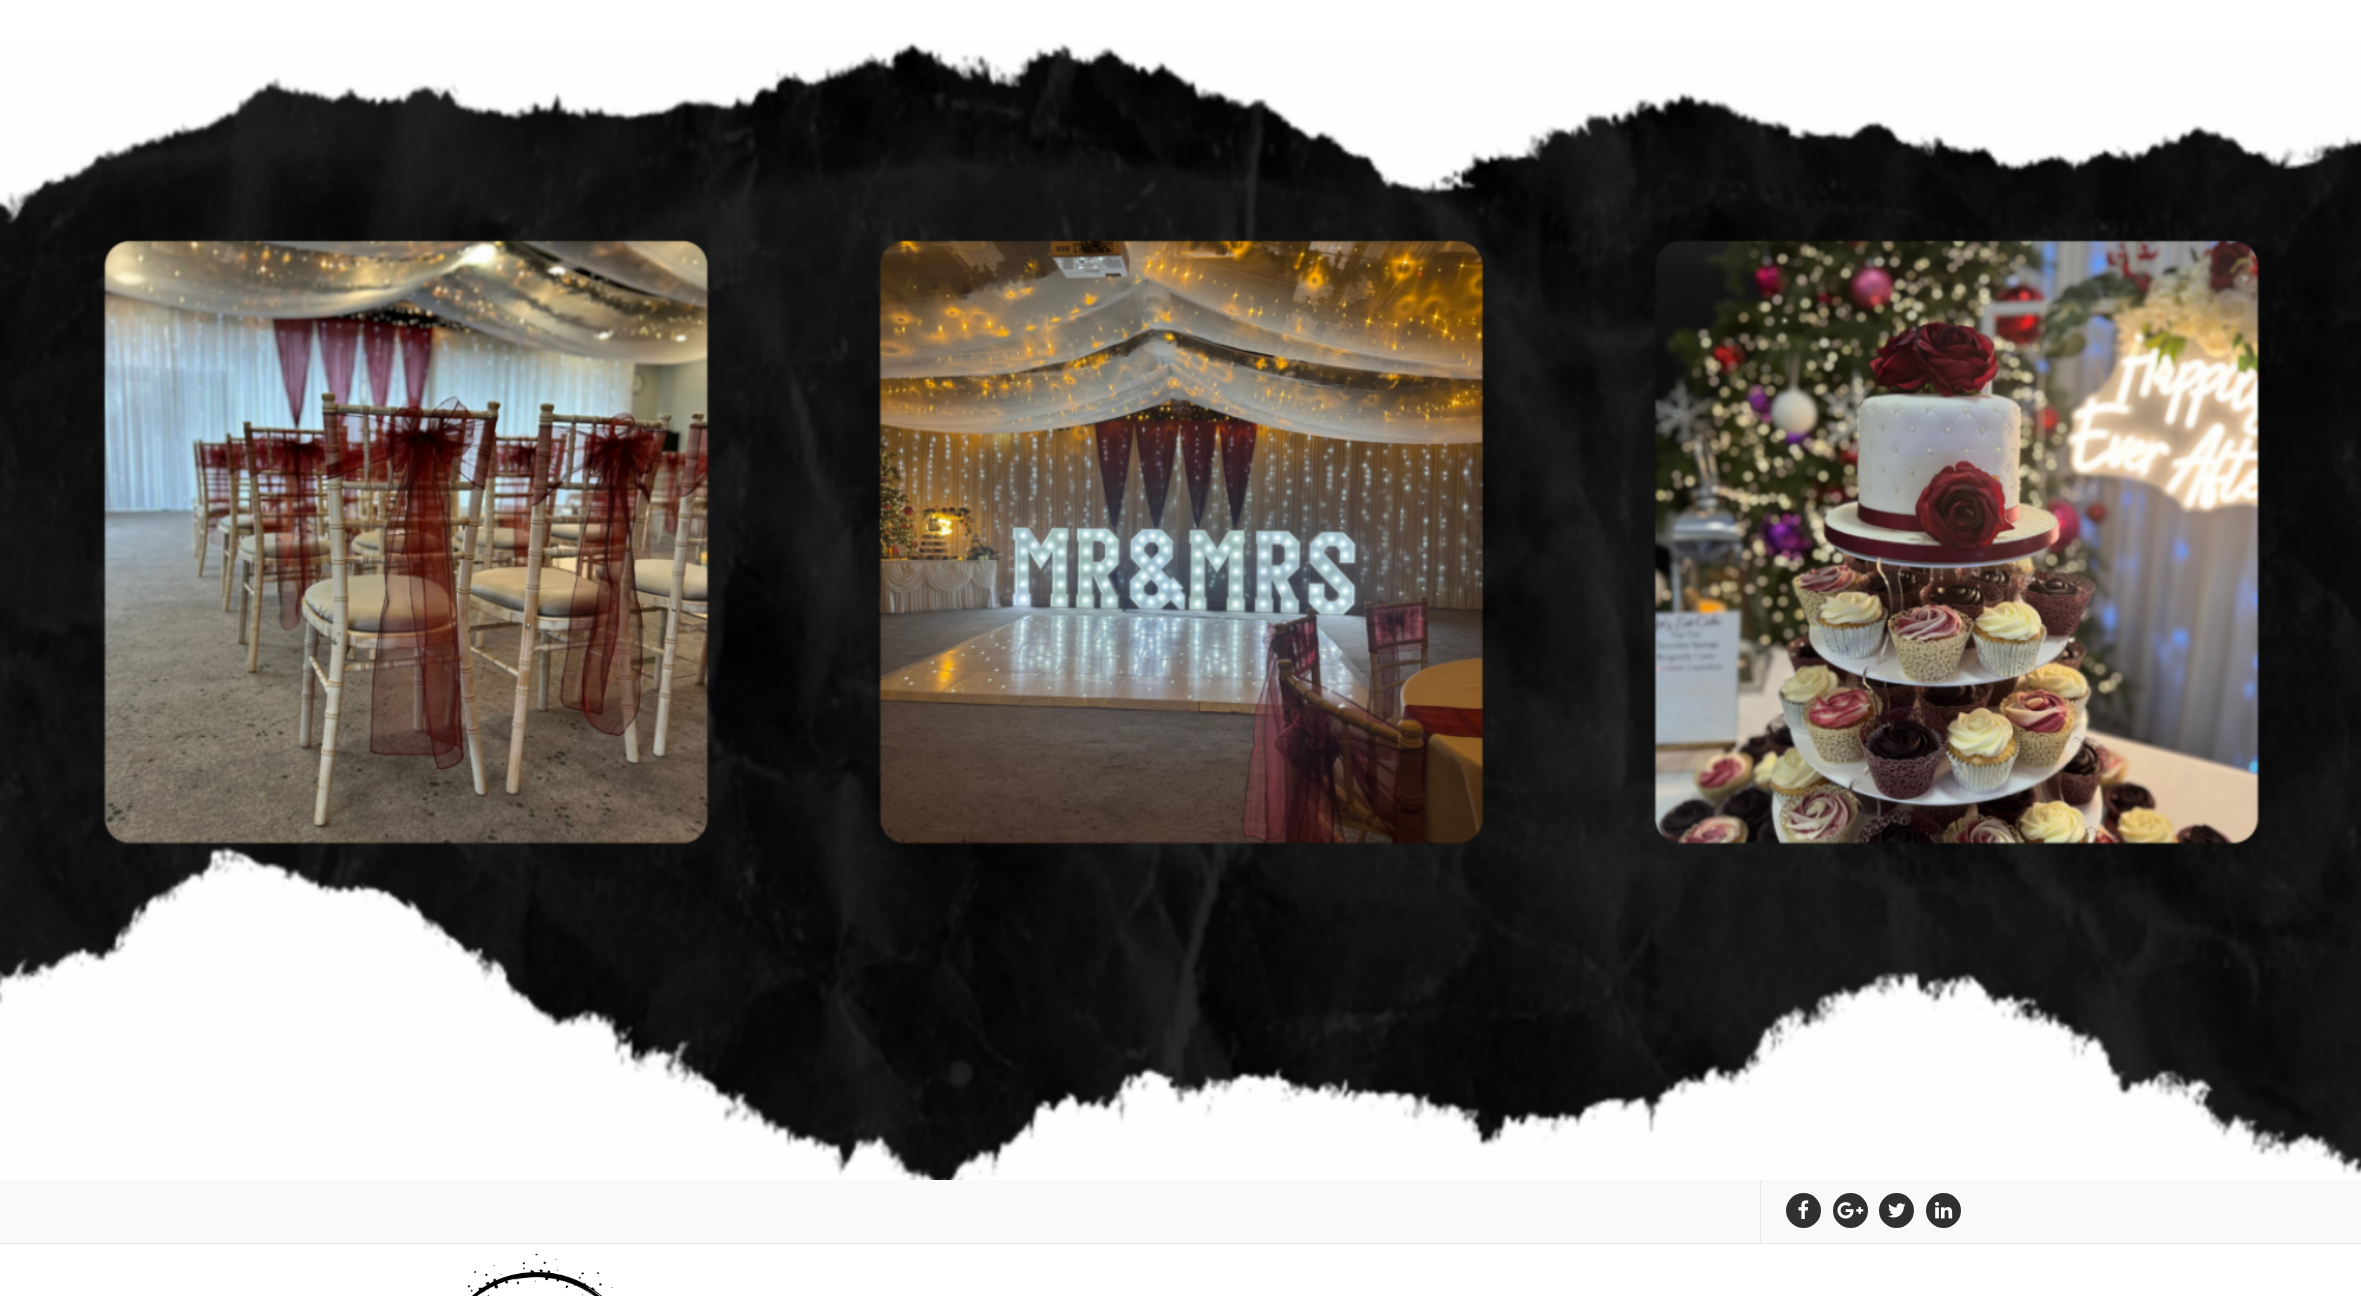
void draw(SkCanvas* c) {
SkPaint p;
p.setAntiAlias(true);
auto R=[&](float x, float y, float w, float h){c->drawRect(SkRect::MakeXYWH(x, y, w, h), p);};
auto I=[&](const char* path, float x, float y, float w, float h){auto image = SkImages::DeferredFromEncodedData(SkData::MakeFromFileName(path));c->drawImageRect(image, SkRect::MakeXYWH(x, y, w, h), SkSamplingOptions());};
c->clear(0xffffffff);
I("1.png",0,41,2361,1139);
p.setColor(0xfff9f9f9);
R(0,1180,2361,63);
p.setColor(0xffe8e8e8);
R(0,1243,2361,1);
R(1760,1180,1,63);
p.setColor(0xff303030);
c->drawCircle(1803.5,1210.5,17.5,p);
I("2.png",1798,1200,11,19);
c->drawCircle(1850.5,1210.5,17.5,p);
I("3.png",1837,1202,27,17);
c->drawCircle(1896.5,1210.5,17.5,p);
I("4.png",1888,1203,18,15);
c->drawCircle(1943.5,1210.5,17.5,p);
I("5.png",1935,1202,18,17);
I("6.png",467,1253,146,43);
}
